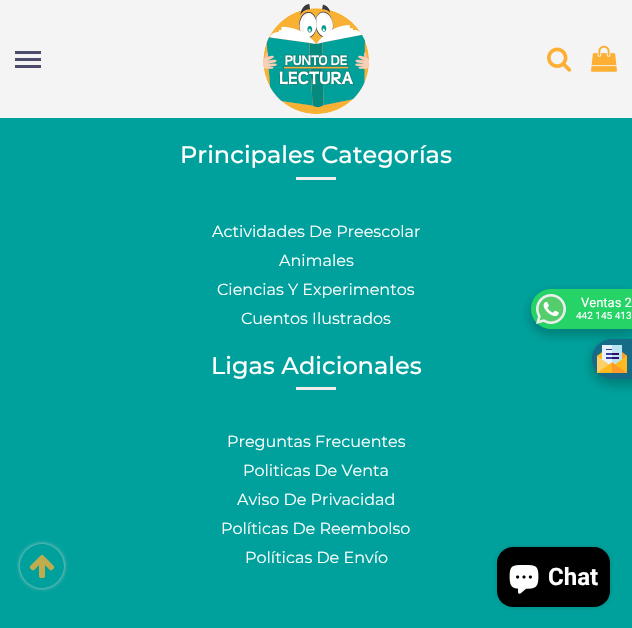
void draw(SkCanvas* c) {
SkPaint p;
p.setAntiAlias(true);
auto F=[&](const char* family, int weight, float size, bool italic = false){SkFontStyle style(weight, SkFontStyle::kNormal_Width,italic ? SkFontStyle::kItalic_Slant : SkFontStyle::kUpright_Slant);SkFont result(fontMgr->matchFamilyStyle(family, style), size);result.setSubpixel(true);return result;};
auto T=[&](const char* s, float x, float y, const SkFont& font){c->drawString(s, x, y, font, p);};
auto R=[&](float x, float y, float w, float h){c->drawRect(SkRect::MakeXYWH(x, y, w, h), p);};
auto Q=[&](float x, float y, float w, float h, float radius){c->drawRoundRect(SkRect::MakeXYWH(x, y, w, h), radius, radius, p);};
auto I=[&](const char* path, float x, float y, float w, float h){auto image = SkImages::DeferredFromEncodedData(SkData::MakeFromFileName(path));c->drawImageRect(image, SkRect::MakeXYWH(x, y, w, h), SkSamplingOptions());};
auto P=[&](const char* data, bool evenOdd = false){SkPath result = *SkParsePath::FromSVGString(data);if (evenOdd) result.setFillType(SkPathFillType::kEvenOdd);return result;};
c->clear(0xff00a19c);
p.setColor(0xfff4f4f4);
R(0,0,632,118);
p.setColor(0xff4c4b6c);
R(15,58,26,3);
R(15,51,26,3);
R(15,65,26,3);
I("1.png",263,4,106,110);
I("2.png",547,47,25,25);
I("3.png",591,45,26,27);
auto f1 = F("Montserrat",500,24);
p.setColor(0xffffffff);
T("Principales Categorías",180,163,f1);
p.setColor(0xffeeeeee);
R(296,177,40,3);
auto f2 = F("Montserrat",400,16);
p.setColor(0xffffffff);
T("Actividades De Preescolar",212,237,f2);
T("Animales",279,266,f2);
T("Ciencias Y Experimentos",217,295,f2);
T("Cuentos Ilustrados",241,324,f2);
T("Ligas Adicionales",211,374,f1);
p.setColor(0xffeeeeee);
R(296,387,40,3);
p.setColor(0xffffffff);
T("Preguntas Frecuentes",227,447,f2);
T("Politicas De Venta",243,476,f2);
T("Aviso De Privacidad",237,505,f2);
T("Políticas De Reembolso",221,534,f2);
T("Políticas De Envío",245,563,f2);
p.setColor(0x33000000);
p.setMaskFilter(SkMaskFilter::MakeBlur(kNormal_SkBlurStyle, 5));
c->drawRoundRect(SkRect::MakeXYWH(529,292,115,44),22,22,p);
p.setMaskFilter(nullptr);
p.setColor(0xff25d366);
c->drawPath(P("M551 289h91v40h-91c-11 0-20-9-20-20c0-11 9-20 20-20z"),p);
I("4.png",536,294,30,30);
auto f3 = F("Roboto",400,13);
p.setColor(0xffffffff);
T("Ventas 2",581,307,f3);
auto f4 = F("Roboto",400,10);
T("442 145 413",576,319,f4);
p.setColor(0x33000000);
p.setMaskFilter(SkMaskFilter::MakeBlur(kNormal_SkBlurStyle, 5));
c->drawRoundRect(SkRect::MakeXYWH(590,342,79,44),22,22,p);
p.setMaskFilter(nullptr);
p.setColor(0xff166b86);
c->drawPath(P("M612 339h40v40h-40c-11 0-20-9-20-20c0-11 9-20 20-20z"),p);
I("5.png",597,345,30,28);
p.setColor(0x40002827);
p.setMaskFilter(SkMaskFilter::MakeBlur(kNormal_SkBlurStyle, 2.5));
c->drawRoundRect(SkRect::MakeXYWH(20,544,44,44),22,22,p);
p.setMaskFilter(nullptr);
p.setColor(0xff00a19c);
c->drawCircle(42,566,22,p);
I("6.png",29,555,26,23);
c->save();
c->clipPath(P("M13 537h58v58h-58zm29 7c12 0 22 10 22 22c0 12-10 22-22 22c-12 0-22-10-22-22c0-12 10-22 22-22z",true),true);
p.setColor(0xffbfe8e6);
p.setMaskFilter(SkMaskFilter::MakeBlur(kNormal_SkBlurStyle, 2));
c->drawRoundRect(SkRect::MakeXYWH(20,544,44,44),22,22,p);
p.setMaskFilter(nullptr);
c->restore();
p.setColor(0x26000000);
p.setMaskFilter(SkMaskFilter::MakeBlur(kNormal_SkBlurStyle, 2.5));
c->drawRoundRect(SkRect::MakeXYWH(497,547,113,60),16,16,p);
p.setMaskFilter(nullptr);
p.setColor(0xff000000);
Q(497,547,113,60,16);
I("7.png",509,565,30,29);
auto f5 = F("Roboto",700,24);
p.setColor(0xffffffff);
T("Chat",548,585,f5);
}
